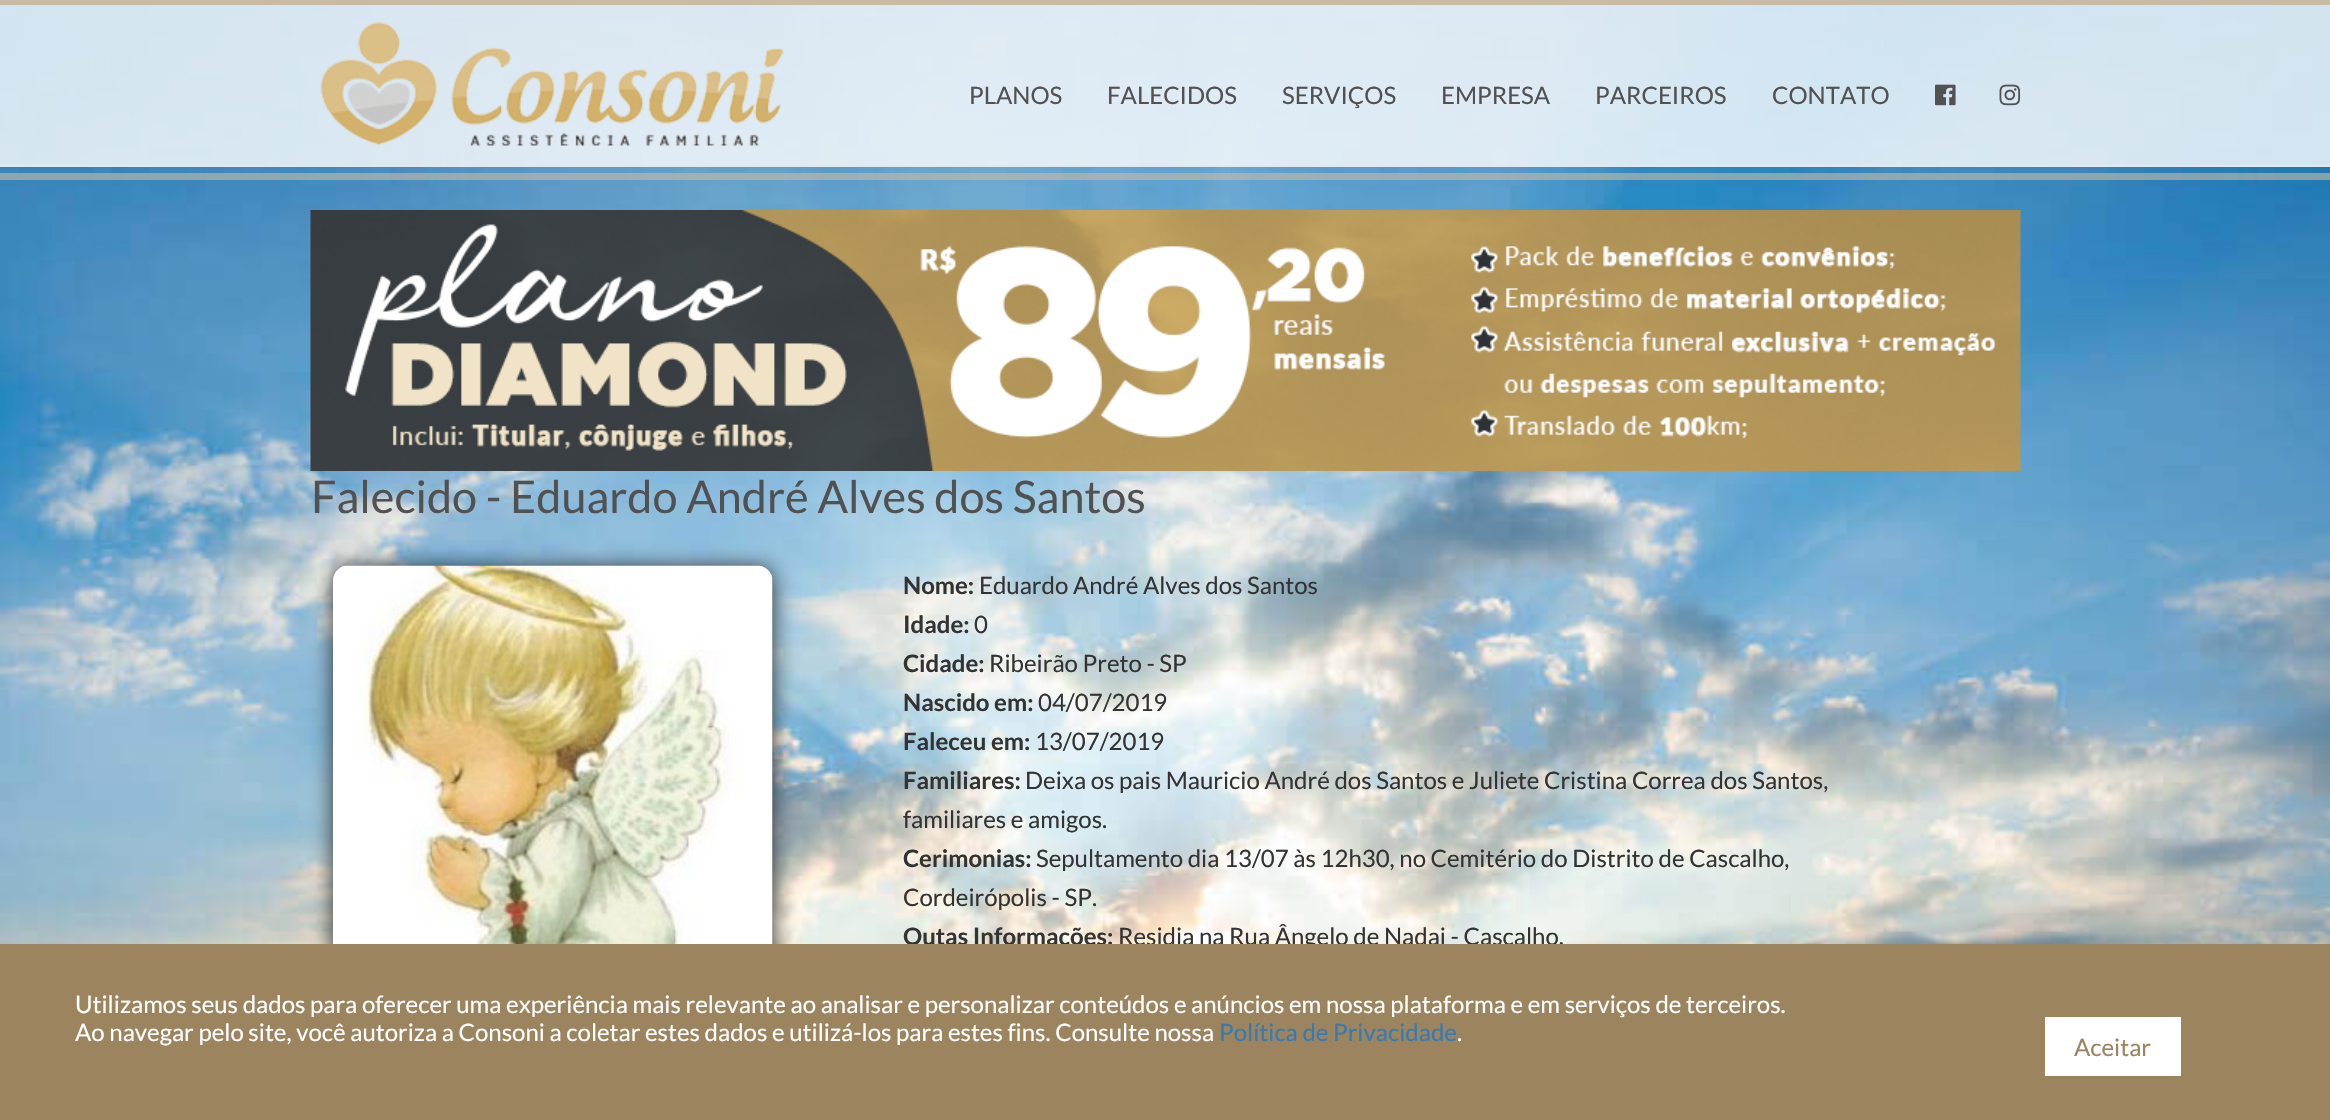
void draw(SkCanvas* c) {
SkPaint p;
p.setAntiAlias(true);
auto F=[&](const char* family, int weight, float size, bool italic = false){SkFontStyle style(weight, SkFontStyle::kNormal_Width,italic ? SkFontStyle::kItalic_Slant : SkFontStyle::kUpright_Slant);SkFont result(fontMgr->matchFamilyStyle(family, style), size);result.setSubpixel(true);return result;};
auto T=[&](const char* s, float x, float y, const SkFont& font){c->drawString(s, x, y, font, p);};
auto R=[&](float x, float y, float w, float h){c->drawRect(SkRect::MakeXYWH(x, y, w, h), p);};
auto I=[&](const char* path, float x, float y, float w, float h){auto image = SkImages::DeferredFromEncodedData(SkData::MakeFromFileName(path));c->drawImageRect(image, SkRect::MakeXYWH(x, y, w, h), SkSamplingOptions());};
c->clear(0xffffffff);
I("4.png",0,5,2330,939);
p.setColor(0xccffffff);
R(0,5,2330,160);
p.setColor(0xffc8baa3);
R(0,0,2330,5);
p.setColor(0xffe7e7e7);
R(0,165,2330,2);
I("1.png",320,22,464,124);
auto f1 = F("Lato",400,24);
p.setColor(0xff515151);
T("PLANOS",969,104,f1);
T("FALECIDOS",1107,104,f1);
T("SERVIÇOS",1282,104,f1);
T("EMPRESA",1441,104,f1);
T("PARCEIROS",1595,104,f1);
T("CONTATO",1772,104,f1);
I("2.png",1935,84,21,22);
I("3.png",1999,84,22,22);
p.setColor(0x99c8baa3);
R(0,173,2330,7);
I("5.png",310,210,1711,261);
auto f2 = F("Lato",400,45);
p.setColor(0xff515151);
T("Falecido - Eduardo André Alves dos Santos",311,513,f2);
p.setColor(0xff323232);
p.setMaskFilter(SkMaskFilter::MakeBlur(kNormal_SkBlurStyle, 10.5));
c->drawRoundRect(SkRect::MakeXYWH(333,567,440,540),15,15,p);
p.setMaskFilter(nullptr);
I("6.png",333,565,440,379);
auto f3 = F("Lato",700,24);
p.setColor(0xff333333);
T("Nome:",903,594,f3);
T("Eduardo André Alves dos Santos",979,594,f1);
T("Idade:",903,633,f3);
T("0",974,633,f1);
T("Cidade:",903,672,f3);
T("Ribeirão Preto - SP",989,672,f1);
T("Nascido em:",903,711,f3);
T("04/07/2019",1038,711,f1);
T("Faleceu em:",903,750,f3);
T("13/07/2019",1035,750,f1);
T("Familiares:",903,789,f3);
T("Deixa os pais Mauricio André dos Santos e Juliete Cristina Correa dos Santos,",1025,789,f1);
T("familiares e amigos.",903,828,f1);
T("Cerimonias:",903,867,f3);
T("Sepultamento dia 13/07 às 12h30, no Cemitério do Distrito de Cascalho,",1036,867,f1);
T("Cordeirópolis - SP.",903,906,f1);
T("Outas Informações:",903,945,f3);
T("Residia na Rua Ângelo de Nadai - Cascalho.",1118,945,f1);
p.setColor(0xff9c845f);
R(0,944,2330,176);
p.setColor(0xffffffff);
T("Utilizamos seus dados para oferecer uma experiência mais relevante ao analisar e personalizar conteúdos e anúncios em nossa plataforma e em serviços de terceiros.",75,1013,f1);
T("Ao navegar pelo site, você autoriza a Consoni a coletar estes dados e utilizá-los para estes fins. Consulte nossa",75,1041,f1);
p.setColor(0xff337ab7);
T("Política de Privacidade",1219,1041,f1);
p.setColor(0xffffffff);
T(".",1457,1041,f1);
R(2045,1017,136,59);
p.setColor(0xff9c845f);
T("Aceitar",2074,1056,f1);
}
